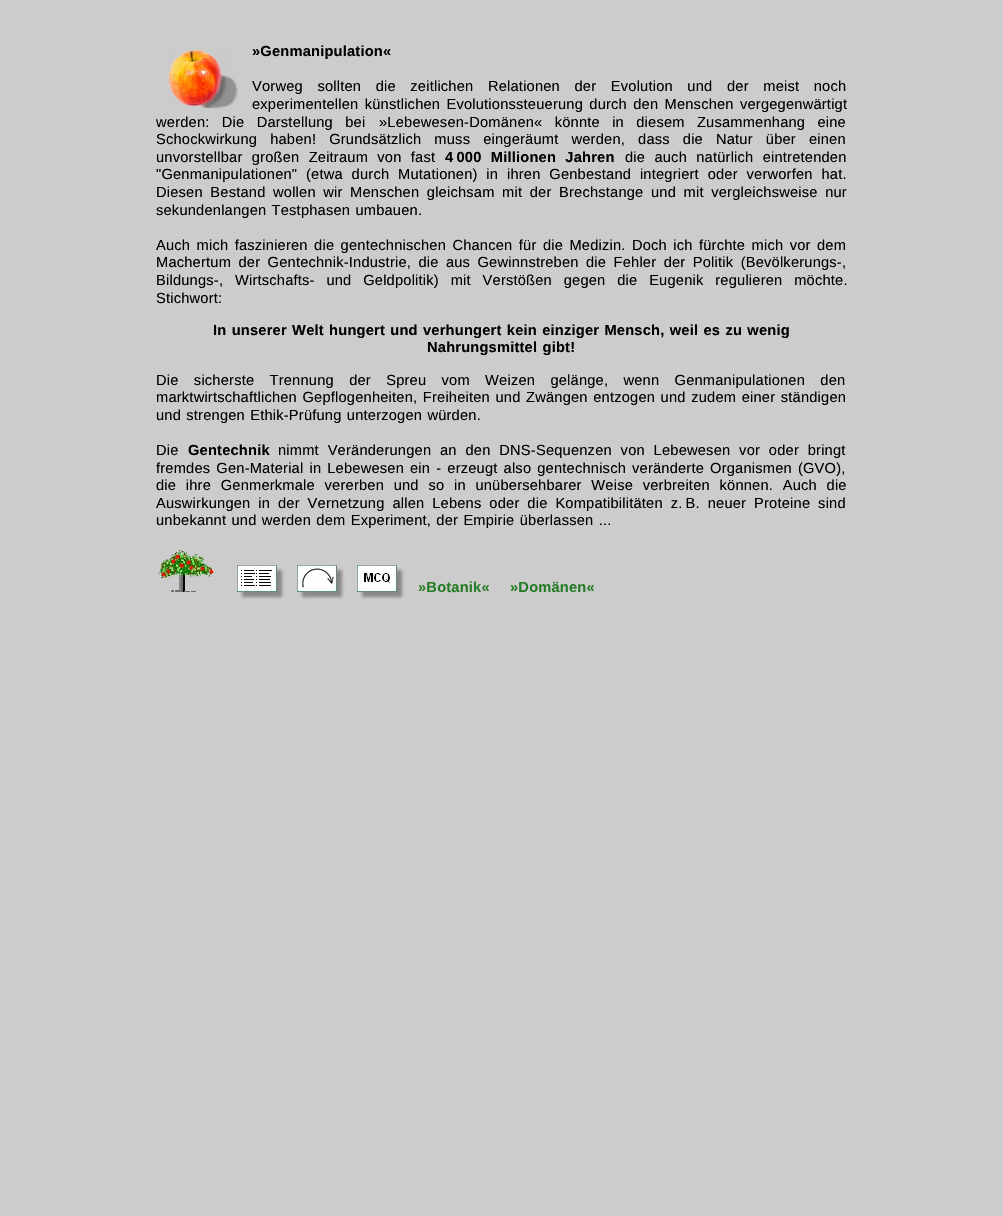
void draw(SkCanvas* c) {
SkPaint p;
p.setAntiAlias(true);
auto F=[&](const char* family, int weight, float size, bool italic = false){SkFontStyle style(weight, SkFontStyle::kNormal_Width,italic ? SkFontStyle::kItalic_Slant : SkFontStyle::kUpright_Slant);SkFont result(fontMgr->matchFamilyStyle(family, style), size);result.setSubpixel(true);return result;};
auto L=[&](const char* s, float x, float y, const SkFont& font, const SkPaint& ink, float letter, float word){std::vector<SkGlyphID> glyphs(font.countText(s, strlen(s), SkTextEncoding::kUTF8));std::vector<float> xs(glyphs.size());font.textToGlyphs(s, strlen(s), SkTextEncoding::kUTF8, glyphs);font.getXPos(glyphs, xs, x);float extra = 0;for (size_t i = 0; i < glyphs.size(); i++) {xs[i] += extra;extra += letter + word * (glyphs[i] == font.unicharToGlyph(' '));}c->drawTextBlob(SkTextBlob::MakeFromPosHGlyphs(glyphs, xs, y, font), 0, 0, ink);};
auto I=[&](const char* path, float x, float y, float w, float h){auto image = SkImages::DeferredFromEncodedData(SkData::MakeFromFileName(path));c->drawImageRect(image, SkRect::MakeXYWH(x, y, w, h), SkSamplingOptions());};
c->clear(0xffcccccc);
I("1.png",168,49,70,60);
auto f1 = F("Liberation Sans",700,14.65);
p.setColor(0xff000000);
L("»Genmanipulation«",252,56,f1,p,.2,0);
auto f2 = F("Liberation Sans",400,14.65);
L("Vorweg sollten die zeitlichen Relationen der Evolution und der meist noch",252,91,f2,p,.2,10.25);
L("experimentellen künstlichen Evolutionssteuerung durch den Menschen vergegenwärtigt",252,109,f2,p,.2,2);
L("werden: Die Darstellung bei",156,127,f2,p,.2,8);
L("»Lebewesen-Domänen« könnte in diesem Zusammenhang eine",379,127,f2,p,.2,8);
L("Schockwirkung haben! Grundsätzlich muss eingeräumt werden, dass die Natur über einen",156,144,f2,p,.2,8.75);
L("unvorstellbar großen Zeitraum von fast",156,162,f2,p,.2,5);
L("4 000 Millionen Jahren",445,162,f1,p,.2,5);
L("die auch natürlich eintretenden",625,162,f2,p,.2,5);
L("\"Genmanipulationen\" (etwa durch Mutationen) in ihren Genbestand integriert oder verworfen hat.",156,179,f2,p,.2,4.5);
L("Diesen Bestand wollen wir Menschen gleichsam mit der Brechstange und mit vergleichsweise nur",156,197,f2,p,.2,3.25);
L("sekundenlangen Testphasen umbauen.",156,215,f2,p,.2,1);
L("Auch mich faszinieren die gentechnischen Chancen für die Medizin. Doch ich fürchte mich vor dem",156,250,f2,p,.2,2.1);
L("Machertum der Gentechnik-Industrie, die aus Gewinnstreben die Fehler der Politik (Bevölkerungs-,",156,267,f2,p,.2,3.1);
L("Bildungs-, Wirtschafts- und Geldpolitik) mit Verstößen gegen die Eugenik regulieren möchte.",156,285,f2,p,.2,7.5);
L("Stichwort:",156,303,f2,p,.2,0);
L("In unserer Welt hungert und verhungert kein einziger Mensch, weil es zu wenig",213,335,f1,p,.2,1);
L("Nahrungsmittel gibt!",427,352,f1,p,.2,1);
L("Die sicherste Trennung der Spreu vom Weizen gelänge, wenn Genmanipulationen den",156,385,f2,p,.2,11);
L("marktwirtschaftlichen Gepflogenheiten, Freiheiten und Zwängen entzogen und zudem einer ständigen",156,402,f2,p,.2,1.25);
L("und strengen Ethik-Prüfung unterzogen würden.",156,420,f2,p,.2,1);
L("Die",156,455,f2,p,.2,0);
L("Gentechnik",188,455,f1,p,.2,0);
L("nimmt Veränderungen an den DNS-Sequenzen von Lebewesen vor oder bringt",278,455,f2,p,.2,4.5);
L("fremdes Gen-Material in Lebewesen ein - erzeugt also gentechnisch veränderte Organismen (GVO),",156,473,f2,p,.2,1.75);
L("die ihre Genmerkmale vererben und so in unübersehbarer Weise verbreiten können. Auch die",156,490,f2,p,.2,5.4);
L("Auswirkungen in der Vernetzung allen Lebens oder die Kompatibilitäten z. B. neuer Proteine sind",156,508,f2,p,.2,3.6);
L("unbekannt und werden dem Experiment, der Empirie überlassen ...",156,525,f2,p,.2,1);
I("2.png",158,550,56,42);
p.setColor(0xff888888);
p.setMaskFilter(SkMaskFilter::MakeBlur(kNormal_SkBlurStyle, 1.5));
c->drawRect(SkRect::MakeXYWH(242,570,40,27),p);
p.setMaskFilter(nullptr);
p.setMaskFilter(SkMaskFilter::MakeBlur(kNormal_SkBlurStyle, 1.5));
c->drawRect(SkRect::MakeXYWH(302,570,40,27),p);
p.setMaskFilter(nullptr);
p.setMaskFilter(SkMaskFilter::MakeBlur(kNormal_SkBlurStyle, 1.5));
c->drawRect(SkRect::MakeXYWH(362,570,40,27),p);
p.setMaskFilter(nullptr);
I("3.png",237,565,40,27);
I("4.png",297,565,40,27);
I("5.png",357,565,40,27);
p.setColor(0xff277c27);
L("»Botanik«",418,592,f1,p,.2,0);
L("»Domänen«",510,592,f1,p,.2,0);
}
